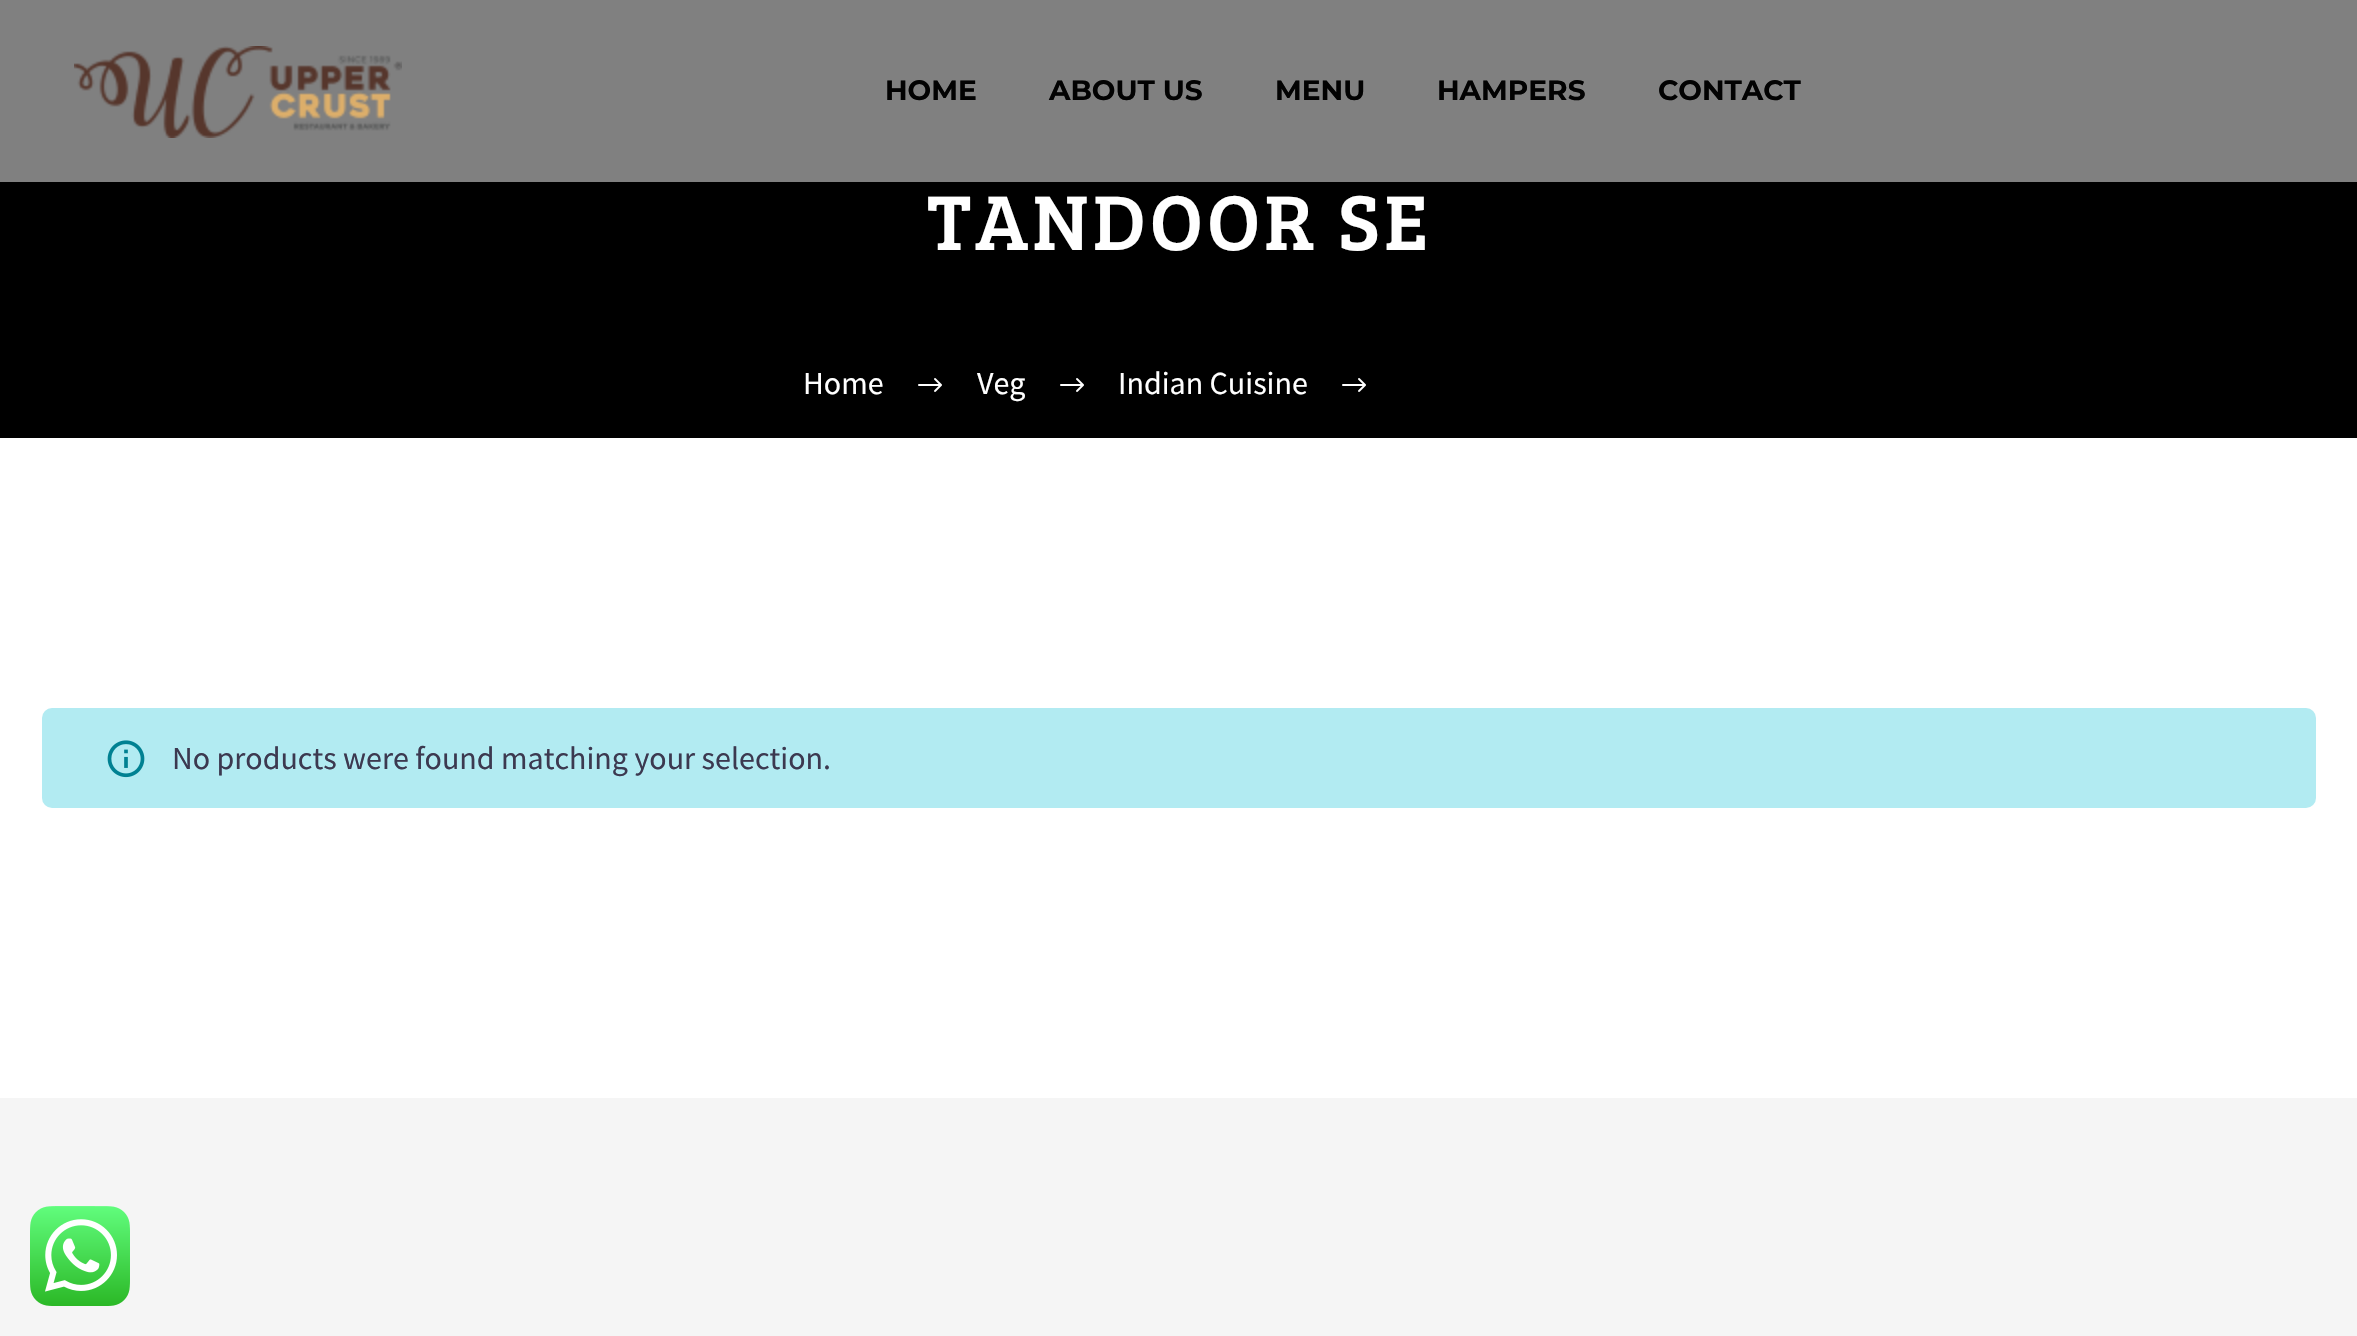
void draw(SkCanvas* c) {
SkPaint p;
p.setAntiAlias(true);
auto F=[&](const char* family, int weight, float size, bool italic = false){SkFontStyle style(weight, SkFontStyle::kNormal_Width,italic ? SkFontStyle::kItalic_Slant : SkFontStyle::kUpright_Slant);SkFont result(fontMgr->matchFamilyStyle(family, style), size);result.setSubpixel(true);return result;};
auto T=[&](const char* s, float x, float y, const SkFont& font){c->drawString(s, x, y, font, p);};
auto L=[&](const char* s, float x, float y, const SkFont& font, const SkPaint& ink, float letter, float word){std::vector<SkGlyphID> glyphs(font.countText(s, strlen(s), SkTextEncoding::kUTF8));std::vector<float> xs(glyphs.size());font.textToGlyphs(s, strlen(s), SkTextEncoding::kUTF8, glyphs);font.getXPos(glyphs, xs, x);float extra = 0;for (size_t i = 0; i < glyphs.size(); i++) {xs[i] += extra;extra += letter + word * (glyphs[i] == font.unicharToGlyph(' '));}c->drawTextBlob(SkTextBlob::MakeFromPosHGlyphs(glyphs, xs, y, font), 0, 0, ink);};
auto R=[&](float x, float y, float w, float h){c->drawRect(SkRect::MakeXYWH(x, y, w, h), p);};
auto Q=[&](float x, float y, float w, float h, float radius){c->drawRoundRect(SkRect::MakeXYWH(x, y, w, h), radius, radius, p);};
auto I=[&](const char* path, float x, float y, float w, float h){auto image = SkImages::DeferredFromEncodedData(SkData::MakeFromFileName(path));c->drawImageRect(image, SkRect::MakeXYWH(x, y, w, h), SkSamplingOptions());};
c->clear(0xffffffff);
p.setColor(0xff808080);
R(0,0,2357,182);
I("1.png",74,46,328,92);
auto f1 = F("Montserrat",700,28);
p.setColor(0xff020202);
T("HOME",885,100,f1);
T("ABOUT US",1049,100,f1);
T("MENU",1275,100,f1);
T("HAMPERS",1437,100,f1);
T("CONTACT",1658,100,f1);
p.setColor(0xff000000);
R(0,182,2357,256);
auto f2 = F("Bree Serif",400,80);
p.setColor(0xffffffff);
L("TANDOOR SE",927,250,f2,p,4,0);
auto f3 = F("Source Sans Pro",400,32);
T("Home",803,394,f3);
I("2.png",918,378,24,14);
T("Veg",977,394,f3);
I("2.png",1060,378,24,14);
T("Indian Cuisine",1118,394,f3);
I("2.png",1342,378,24,14);
p.setColor(0xffb2ebf2);
Q(42,708,2274,100,10);
I("3.png",107,740,38,38);
p.setColor(0xff3c3950);
T("No products were found matching your selection.",172,769,f3);
p.setColor(0xfff5f5f5);
R(0,1098,2357,238);
I("4.png",30,1206,100,100);
}
